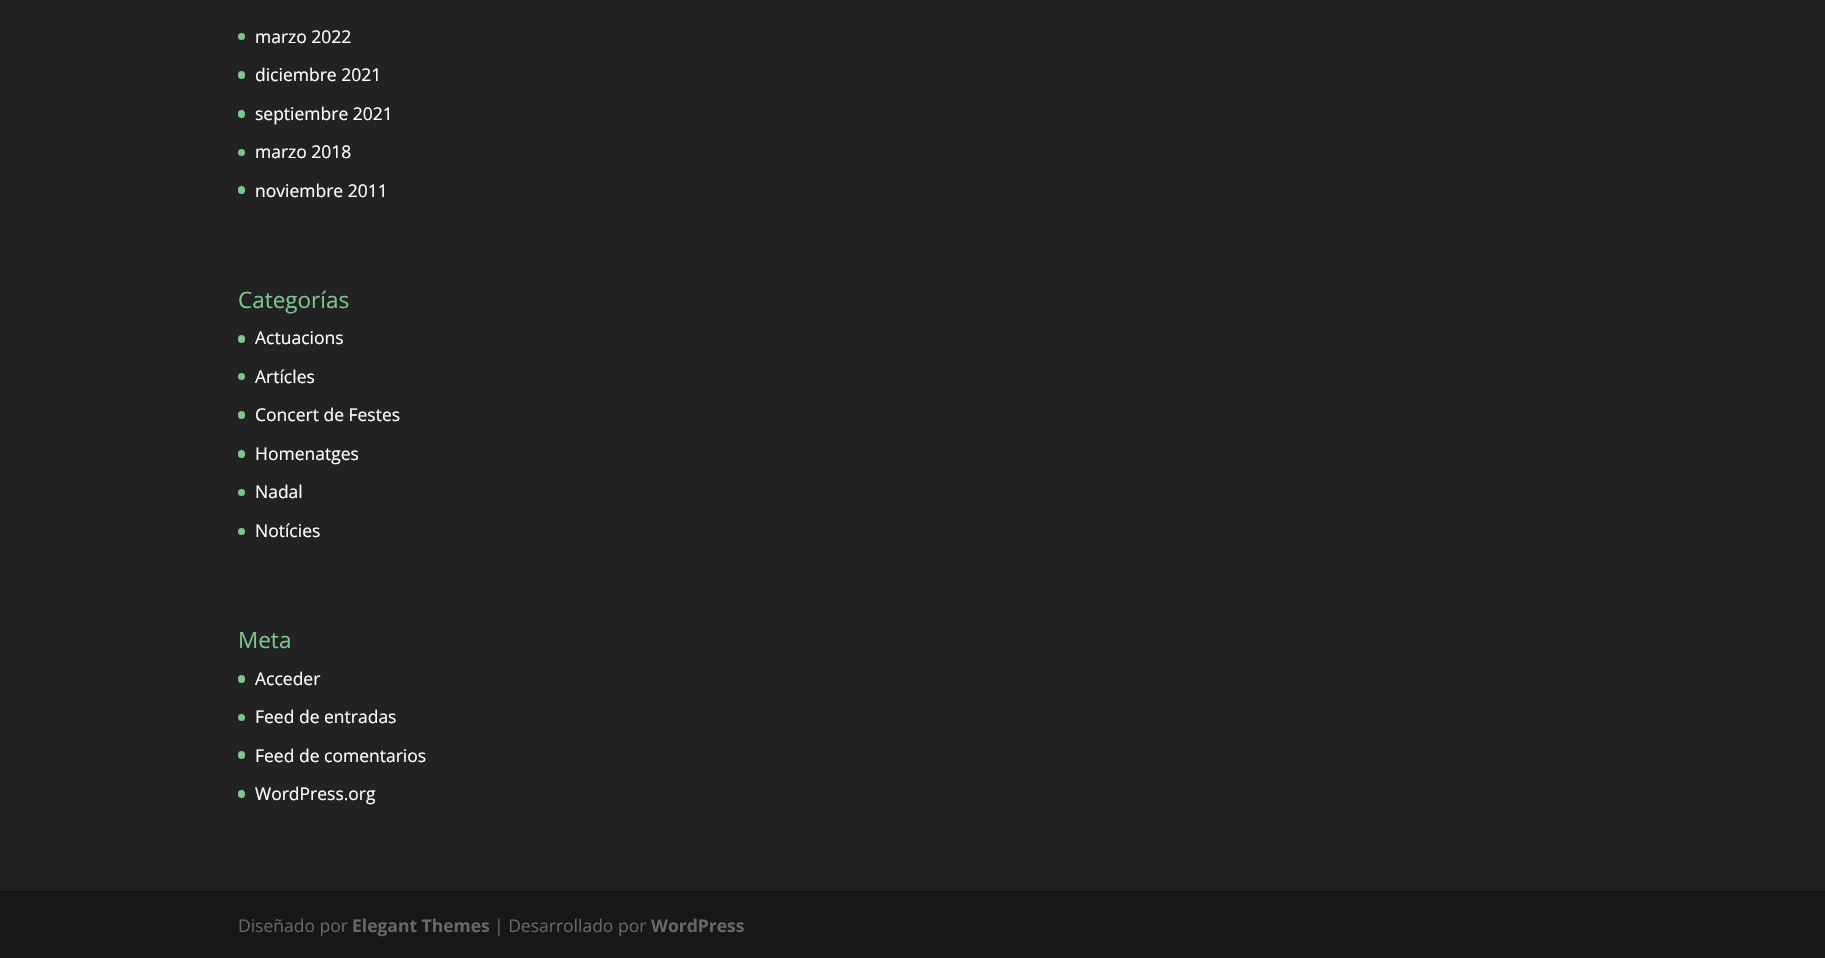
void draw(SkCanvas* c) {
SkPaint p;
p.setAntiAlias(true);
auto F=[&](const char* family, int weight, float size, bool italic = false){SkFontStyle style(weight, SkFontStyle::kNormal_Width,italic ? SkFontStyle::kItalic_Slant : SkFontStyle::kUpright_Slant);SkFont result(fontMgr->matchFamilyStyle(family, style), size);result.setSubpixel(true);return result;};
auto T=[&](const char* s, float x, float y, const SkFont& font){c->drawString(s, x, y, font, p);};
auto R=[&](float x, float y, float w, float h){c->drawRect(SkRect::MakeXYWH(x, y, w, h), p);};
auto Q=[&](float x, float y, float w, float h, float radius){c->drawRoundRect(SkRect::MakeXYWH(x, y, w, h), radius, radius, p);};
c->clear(0xff222222);
p.setColor(0xff7cc68d);
c->drawCircle(241.5,36.5,3.5,p);
auto f1 = F("Open Sans",400,17.5);
p.setColor(0xffffffff);
T("marzo 2022",255,43,f1);
p.setColor(0xff7cc68d);
Q(238,71,7,8,3.5);
p.setColor(0xffffffff);
T("diciembre 2021",255,81,f1);
p.setColor(0xff7cc68d);
Q(238,110,7,8,3.5);
p.setColor(0xffffffff);
T("septiembre 2021",255,120,f1);
p.setColor(0xff7cc68d);
c->drawCircle(241.5,152.5,3.5,p);
p.setColor(0xffffffff);
T("marzo 2018",255,158,f1);
p.setColor(0xff7cc68d);
Q(238,186,7,8,3.5);
p.setColor(0xffffffff);
T("noviembre 2011",255,197,f1);
auto f2 = F("Open Sans",400,22.5);
p.setColor(0xff7cc68d);
T("Categorías",238,308,f2);
Q(238,335,7,8,3.5);
p.setColor(0xffffffff);
T("Actuacions",255,344,f1);
p.setColor(0xff7cc68d);
c->drawCircle(241.5,376.5,3.5,p);
p.setColor(0xffffffff);
T("Artícles",255,383,f1);
p.setColor(0xff7cc68d);
Q(238,411,7,8,3.5);
p.setColor(0xffffffff);
T("Concert de Festes",255,421,f1);
p.setColor(0xff7cc68d);
Q(238,450,7,8,3.5);
p.setColor(0xffffffff);
T("Homenatges",255,460,f1);
p.setColor(0xff7cc68d);
c->drawCircle(241.5,492.5,3.5,p);
p.setColor(0xffffffff);
T("Nadal",255,498,f1);
p.setColor(0xff7cc68d);
c->drawCircle(241.5,531.5,3.5,p);
p.setColor(0xffffffff);
T("Notícies",255,537,f1);
p.setColor(0xff7cc68d);
T("Meta",238,648,f2);
Q(238,675,7,8,3.5);
p.setColor(0xffffffff);
T("Acceder",255,685,f1);
p.setColor(0xff7cc68d);
c->drawCircle(241.5,717.5,3.5,p);
p.setColor(0xffffffff);
T("Feed de entradas",255,723,f1);
p.setColor(0xff7cc68d);
Q(238,751,7,8,3.5);
p.setColor(0xffffffff);
T("Feed de comentarios",255,762,f1);
p.setColor(0xff7cc68d);
Q(238,790,7,8,3.5);
p.setColor(0xffffffff);
T("WordPress.org",255,800,f1);
p.setColor(0xff171717);
R(0,891,1825,67);
p.setColor(0xff666666);
T("Diseñado por",238,932,f1);
auto f3 = F("Open Sans",700,17.5);
T("Elegant Themes",352,932,f3);
T("| Desarrollado por",494,932,f1);
T("WordPress",651,932,f3);
}
